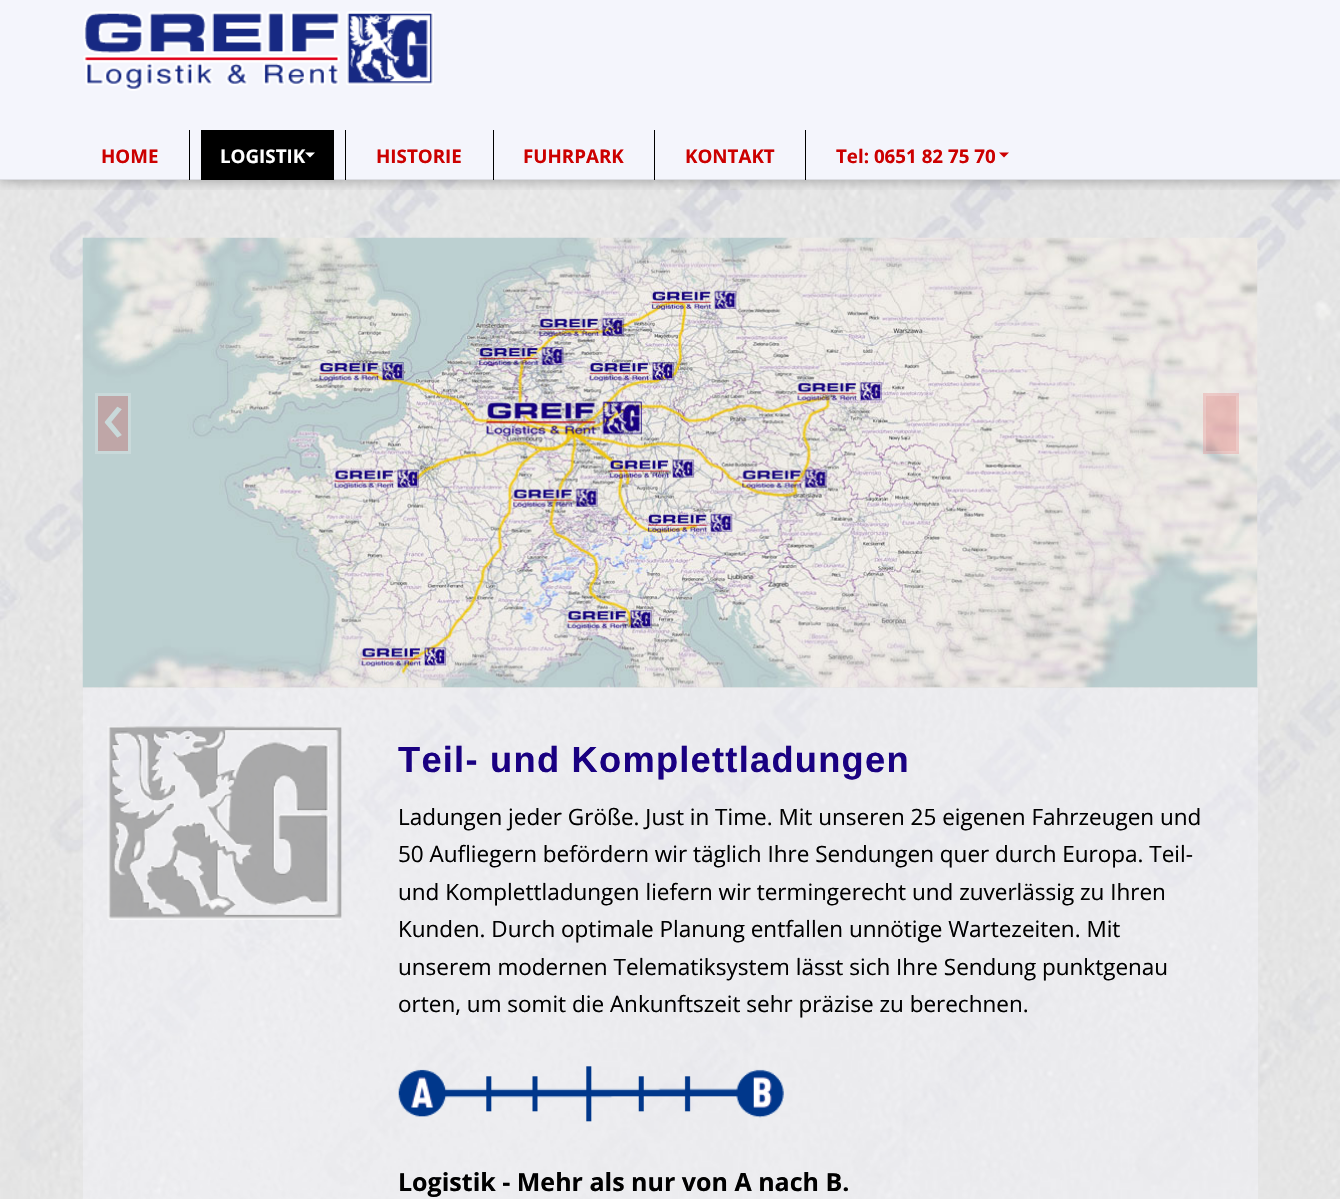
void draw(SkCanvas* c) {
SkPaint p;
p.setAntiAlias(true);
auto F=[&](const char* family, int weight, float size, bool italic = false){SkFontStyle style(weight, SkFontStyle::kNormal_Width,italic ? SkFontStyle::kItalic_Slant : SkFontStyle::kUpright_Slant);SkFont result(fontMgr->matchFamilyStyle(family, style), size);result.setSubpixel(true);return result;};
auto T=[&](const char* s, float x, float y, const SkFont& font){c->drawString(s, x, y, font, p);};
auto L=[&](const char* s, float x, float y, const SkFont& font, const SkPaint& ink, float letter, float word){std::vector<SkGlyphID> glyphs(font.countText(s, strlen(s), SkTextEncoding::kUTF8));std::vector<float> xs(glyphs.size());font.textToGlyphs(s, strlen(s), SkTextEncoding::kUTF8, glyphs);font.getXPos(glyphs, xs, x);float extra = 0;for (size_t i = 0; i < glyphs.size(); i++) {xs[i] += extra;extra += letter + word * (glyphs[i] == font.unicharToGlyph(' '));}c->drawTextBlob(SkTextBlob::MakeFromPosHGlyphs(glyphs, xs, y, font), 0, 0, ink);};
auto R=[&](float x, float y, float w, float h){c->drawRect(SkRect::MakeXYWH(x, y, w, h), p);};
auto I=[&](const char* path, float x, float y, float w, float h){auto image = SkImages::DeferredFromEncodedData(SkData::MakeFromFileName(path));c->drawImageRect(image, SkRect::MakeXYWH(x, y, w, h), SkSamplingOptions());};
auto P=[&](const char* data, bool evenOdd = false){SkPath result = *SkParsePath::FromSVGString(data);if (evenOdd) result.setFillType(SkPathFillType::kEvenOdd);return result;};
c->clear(0xffffffff);
I("1.png",0,180,1340,1019);
p.setColor(0xfff4f5fc);
R(0,0,1340,179);
c->save();
c->clipRect(SkRect::MakeXYWH(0,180,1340,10));
p.setColor(0x4d000000);
p.setMaskFilter(SkMaskFilter::MakeBlur(kNormal_SkBlurStyle, 6));
c->drawRect(SkRect::MakeXYWH(0,1,1340,180),p);
p.setMaskFilter(nullptr);
c->restore();
p.setColor(0xffdcdde3);
R(0,179,1340,1);
I("2.png",83,11,351,80);
auto f1 = F("Open Sans",700,18.75);
p.setColor(0xffcc0000);
T("HOME",101,163,f1);
p.setColor(0xff000000);
R(189,130,1,50);
R(201,130,133,50);
p.setColor(0xffffffff);
T("LOGISTIK",220,163,f1);
c->drawPath(P("M305 152.5h10l-5 5z"),p);
p.setColor(0xff000000);
R(345,130,1,50);
p.setColor(0xffcc0000);
T("HISTORIE",376,163,f1);
p.setColor(0xff000000);
R(493,130,1,50);
p.setColor(0xffcc0000);
T("FUHRPARK",523,163,f1);
p.setColor(0xff000000);
R(654,130,1,50);
p.setColor(0xffcc0000);
T("KONTAKT",685,163,f1);
p.setColor(0xff000000);
R(805,130,1,50);
p.setColor(0xffcc0000);
T("Tel: 0651 82 75 70",836,163,f1);
c->drawPath(P("M999 152.5h10l-5 5z"),p);
I("3.png",82,237,1176,451);
p.setColor(0xffbfa6a7);
c->drawRect(SkRect::MakeXYWH(96.5,394.5,33,58),p);
p.setStroke(true);
p.setStrokeWidth(3);
p.setColor(0xffc9d9da);
c->drawRect(SkRect::MakeXYWH(96.5,394.5,33,58),p);
auto f2 = F("Open Sans",400,75);
p.setStroke(false);
T("‹",102,442,f2);
p.setColor(0x33cc0000);
R(1203,393,36,61);
p.setStroke(true);
p.setColor(0x33ffffff);
c->drawRect(SkRect::MakeXYWH(1204.5,394.5,33,58),p);
p.setStroke(false);
p.setColor(0x66f4f5fc);
R(83,688,1175,511);
I("4.png",107,726,235,194);
auto f3 = F("Liberation Sans",700,36.25);
p.setColor(0xff190081);
L("Teil- und Komplettladungen",398,772,f3,p,1.25,0);
auto f4 = F("Open Sans",400,22.5);
p.setColor(0xff000000);
T("Ladungen jeder Größe. Just in Time. Mit unseren 25 eigenen Fahrzeugen und",398,825,f4);
T("50 Aufliegern befördern wir täglich Ihre Sendungen quer durch Europa. Teil-",398,862,f4);
T("und Komplettladungen liefern wir termingerecht und zuverlässig zu Ihren",398,900,f4);
T("Kunden. Durch optimale Planung entfallen unnötige Wartezeiten. Mit",398,937,f4);
T("unserem modernen Telematiksystem lässt sich Ihre Sendung punktgenau",398,975,f4);
T("orten, um somit die Ankunftszeit sehr präzise zu berechnen.",398,1012,f4);
I("5.png",398,1066,386,56);
auto f5 = F("Open Sans",700,25);
T("Logistik - Mehr als nur von A nach B.",398,1191,f5);
}
